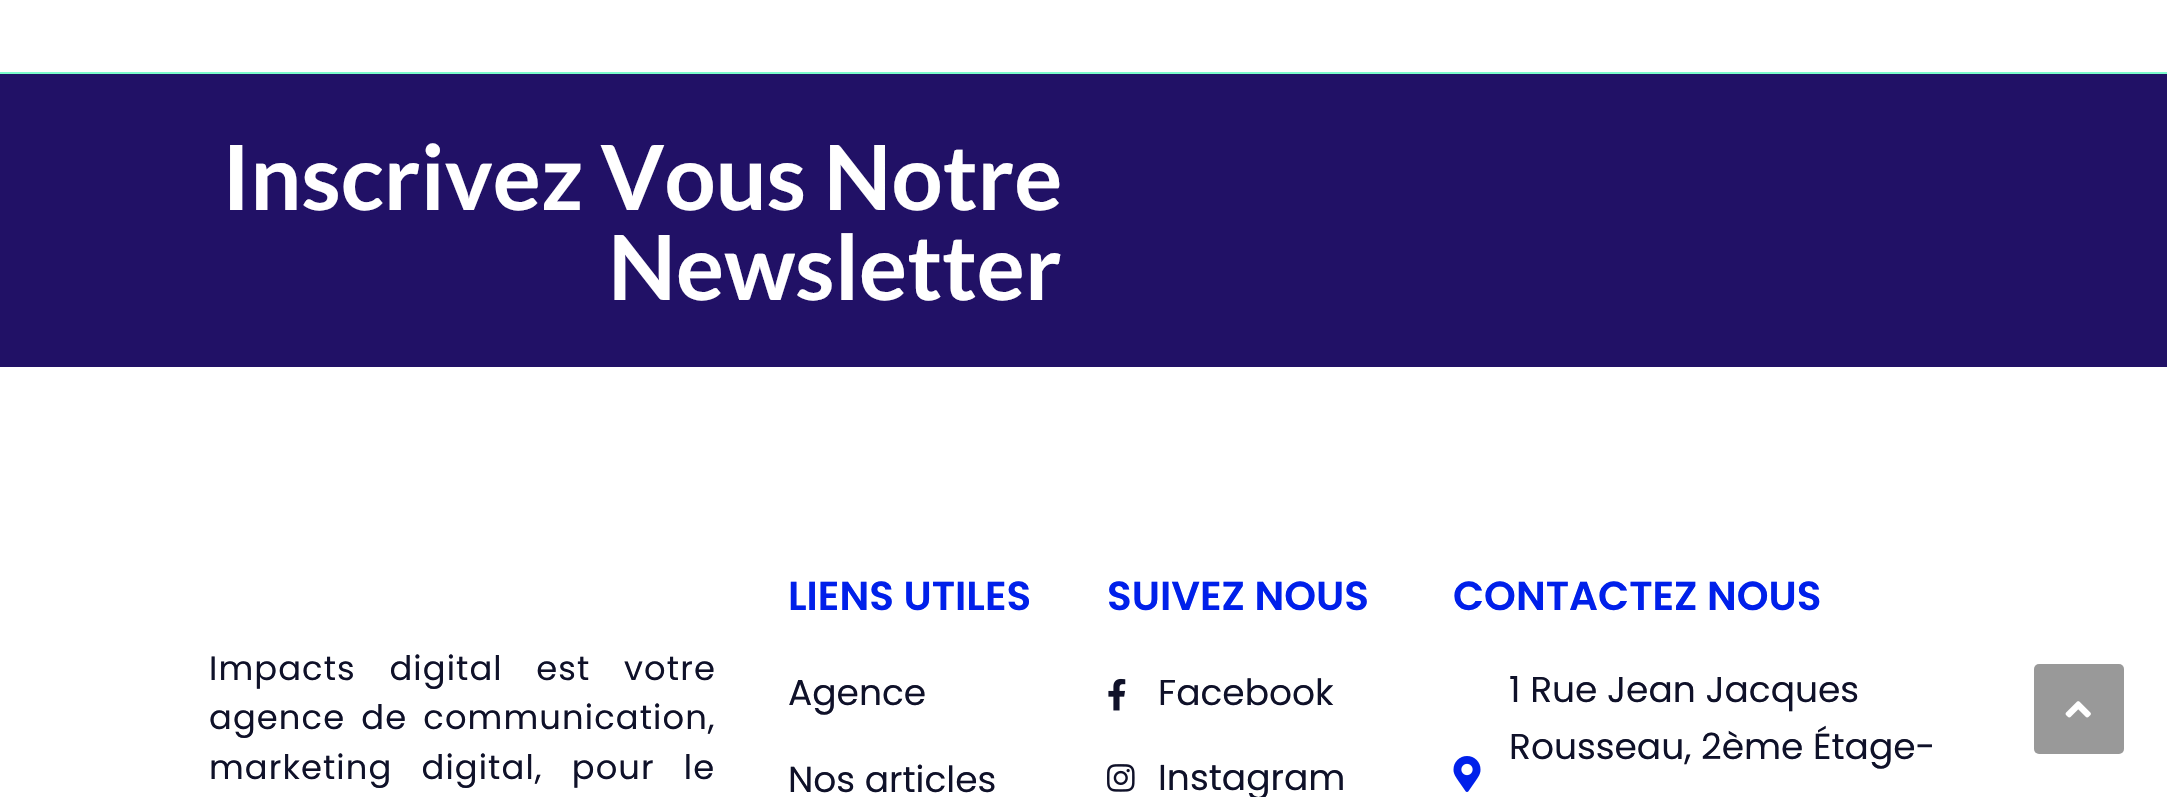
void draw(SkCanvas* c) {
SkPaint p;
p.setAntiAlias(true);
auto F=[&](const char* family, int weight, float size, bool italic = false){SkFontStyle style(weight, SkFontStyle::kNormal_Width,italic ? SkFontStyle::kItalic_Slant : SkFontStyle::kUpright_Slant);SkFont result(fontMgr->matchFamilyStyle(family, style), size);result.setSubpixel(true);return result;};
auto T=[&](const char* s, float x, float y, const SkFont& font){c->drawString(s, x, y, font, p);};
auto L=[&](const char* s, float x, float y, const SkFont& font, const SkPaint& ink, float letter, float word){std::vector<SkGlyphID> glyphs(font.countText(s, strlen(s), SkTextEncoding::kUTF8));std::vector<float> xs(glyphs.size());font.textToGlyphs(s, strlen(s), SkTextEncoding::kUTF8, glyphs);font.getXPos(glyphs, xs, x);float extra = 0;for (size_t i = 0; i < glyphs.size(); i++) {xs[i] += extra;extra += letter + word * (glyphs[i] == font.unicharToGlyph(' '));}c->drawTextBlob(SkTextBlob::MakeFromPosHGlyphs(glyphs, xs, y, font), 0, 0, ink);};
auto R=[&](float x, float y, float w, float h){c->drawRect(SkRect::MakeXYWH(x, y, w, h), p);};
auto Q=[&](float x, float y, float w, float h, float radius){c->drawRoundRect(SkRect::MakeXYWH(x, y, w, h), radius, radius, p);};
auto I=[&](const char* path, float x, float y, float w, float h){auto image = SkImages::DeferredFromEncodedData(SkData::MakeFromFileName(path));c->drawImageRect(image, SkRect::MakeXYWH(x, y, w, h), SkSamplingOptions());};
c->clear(0xffffffff);
p.setColor(0xff211166);
R(0,74,2167,293);
p.setColor(0xff7dfccc);
R(0,72,2167,2);
auto f1 = F("Lato",700,90);
p.setColor(0xffffffff);
T("Inscrivez Vous Notre",222,210,f1);
T("Newsletter",608,300,f1);
auto f2 = F("Poppins",400,33.75);
p.setColor(0xff0f1129);
L("Impacts digital est votre",209,680,f2,p,1.1,23.5);
L("agence de communication,",209,729,f2,p,1.1,6);
L("marketing digital, pour le",209,779,f2,p,1.1,19);
auto f3 = F("Poppins",600,40.5);
p.setColor(0xff0020ea);
T("LIENS UTILES",788,610,f3);
auto f4 = F("Poppins",400,36);
p.setColor(0xff0f1129);
T("Agence",788,705,f4);
T("Nos articles",788,792,f4);
p.setColor(0xff0020ea);
T("SUIVEZ NOUS",1107,610,f3);
I("1.png",1108,678,18,33);
p.setColor(0xff0f1129);
T("Facebook",1158,705,f4);
I("2.png",1107,764,28,28);
T("Instagram",1158,790,f4);
p.setColor(0xff0020ea);
T("CONTACTEZ NOUS",1453,610,f3);
p.setColor(0xff0f1129);
T("1 Rue Jean Jacques",1509,702,f4);
T("Rousseau, 2ème Étage-",1509,759,f4);
I("3.png",1453,756,28,36);
p.setColor(0xff999999);
Q(2034,664,90,90,5);
I("4.png",2065,701,26,17);
}
